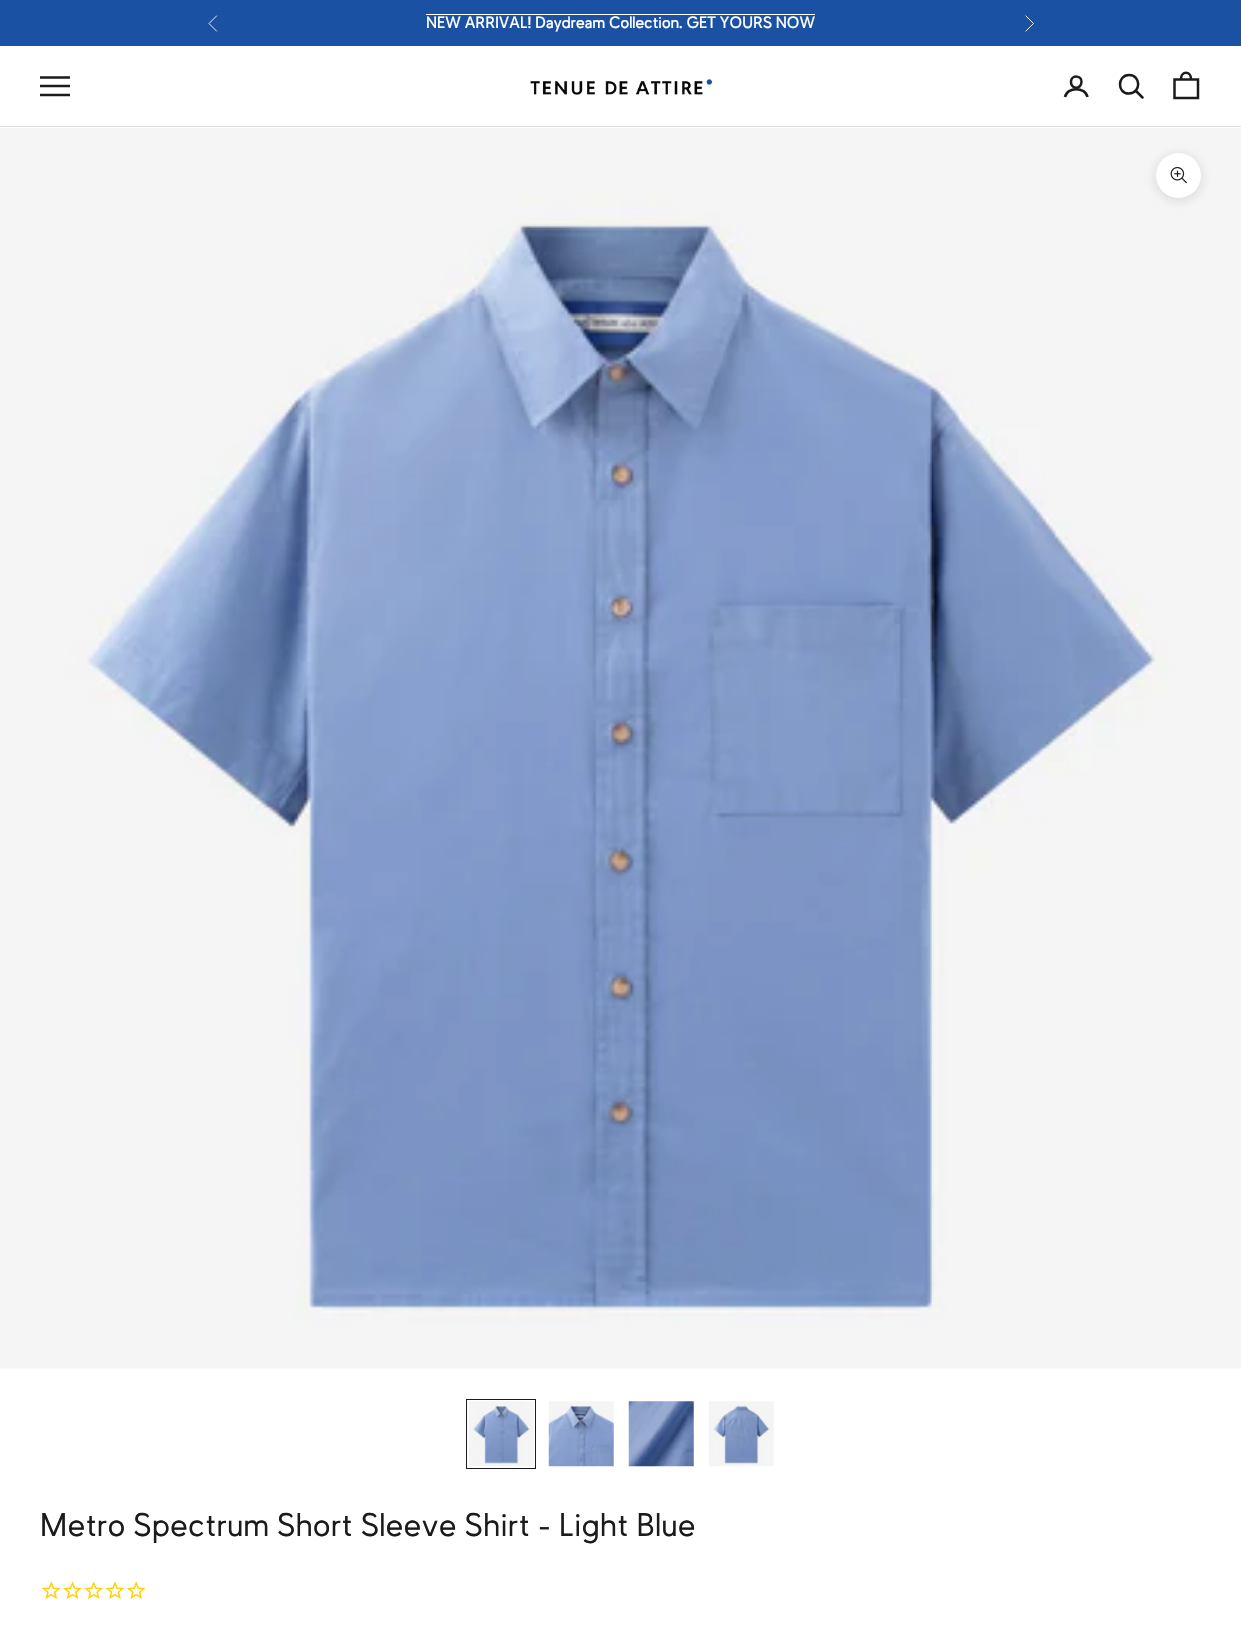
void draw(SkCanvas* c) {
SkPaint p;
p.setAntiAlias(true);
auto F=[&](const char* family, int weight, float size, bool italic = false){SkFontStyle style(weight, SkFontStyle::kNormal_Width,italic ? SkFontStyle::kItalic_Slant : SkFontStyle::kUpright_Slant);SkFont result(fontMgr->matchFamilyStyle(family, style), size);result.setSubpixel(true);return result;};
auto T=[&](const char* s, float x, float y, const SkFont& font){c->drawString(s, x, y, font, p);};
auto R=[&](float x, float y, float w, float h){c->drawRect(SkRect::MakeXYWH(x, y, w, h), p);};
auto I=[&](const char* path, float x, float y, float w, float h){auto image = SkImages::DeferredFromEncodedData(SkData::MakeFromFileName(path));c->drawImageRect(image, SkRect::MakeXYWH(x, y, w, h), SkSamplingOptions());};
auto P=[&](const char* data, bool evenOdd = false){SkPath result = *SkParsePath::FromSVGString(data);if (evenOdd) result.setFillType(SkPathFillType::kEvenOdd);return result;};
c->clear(0xffffffff);
p.setColor(0xff1a51a3);
R(0,0,1241,46);
p.setStroke(true);
p.setStrokeWidth(.9);
p.setStrokeCap(SkPaint::kSquare_Cap);
p.setColor(0xffffffff);
c->drawPath(P("M216.5 16l-7.5 7.5l7.5 7.5"),p);
auto f1 = F("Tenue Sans",700,12.5);
p.setStroke(false);
T("NEW ARRIVAL! Daydream Collection. GET YOURS NOW",426,28,f1);
R(426,14,389,1);
p.setStroke(true);
c->drawPath(P("M1026 31l7.5-7.5l-7.5-7.5"),p);
p.setStroke(false);
p.setColor(0xffdddddd);
R(0,126,1241,1);
c->save();
c->clipRect(SkRect::MakeXYWH(40,71,30,30));
p.setStroke(true);
p.setStrokeWidth(2.5);
p.setColor(0xff1c1b1b);
c->drawPath(P("M41 95h28m-28-9h28m-28-8.5h28"),p);
c->restore();
I("1.png",530,79,183,16);
p.setStrokeCap(SkPaint::kRound_Cap);
p.setStrokeJoin(SkPaint::kRound_Join);
c->drawPath(P("M1081.5 82c-.5 8.5-11.5 7-10.5-1c1-6.5 11-5.5 10.5 1z"),p);
p.setStrokeCap(SkPaint::kButt_Cap);
p.setStrokeJoin(SkPaint::kMiter_Join);
c->drawPath(P("M1065 97c2-10.5 20.5-10.5 22.5 0"),p);
c->drawPath(P("M1129 75c-12 0-12 19 0 18.5c12.5-.5 12-18.5 0-18.5z"),p);
p.setStrokeCap(SkPaint::kRound_Cap);
c->drawPath(P("M1136 91l6.5 6.5"),p);
p.setStrokeCap(SkPaint::kButt_Cap);
c->drawPath(P("M1198 98v-18.5h-23.5v18.5zm-17-19c0-8.5 10-8.5 10 0"),p);
I("2.png",0,128,1241,1241);
p.setStroke(false);
p.setColor(0x261c1c1c);
p.setMaskFilter(SkMaskFilter::MakeBlur(kNormal_SkBlurStyle, 6));
c->drawRoundRect(SkRect::MakeXYWH(1156,155,45,45),22.5,22.5,p);
p.setMaskFilter(nullptr);
p.setColor(0xffffffff);
c->drawCircle(1178.5,175.5,22.5,p);
I("3.png",1170,167,17,17);
p.setStroke(true);
p.setStrokeWidth(1);
p.setColor(0xff1c1b1b);
c->drawRect(SkRect::MakeXYWH(466.5,1399.5,69,69),p);
I("4.png",468,1401,66,66);
I("5.png",548,1401,66,66);
I("6.png",628,1401,66,66);
I("7.png",708,1401,66,66);
auto f2 = F("Tenue Sans",400,25.5);
p.setStroke(false);
T("Metro Spectrum Short Sleeve Shirt - Light Blue",40,1536,f2);
I("8.png",42,1581,19,18);
I("9.png",63,1581,19,18);
I("10.png",84,1581,19,18);
I("11.png",105,1581,20,18);
I("8.png",127,1581,19,18);
}
